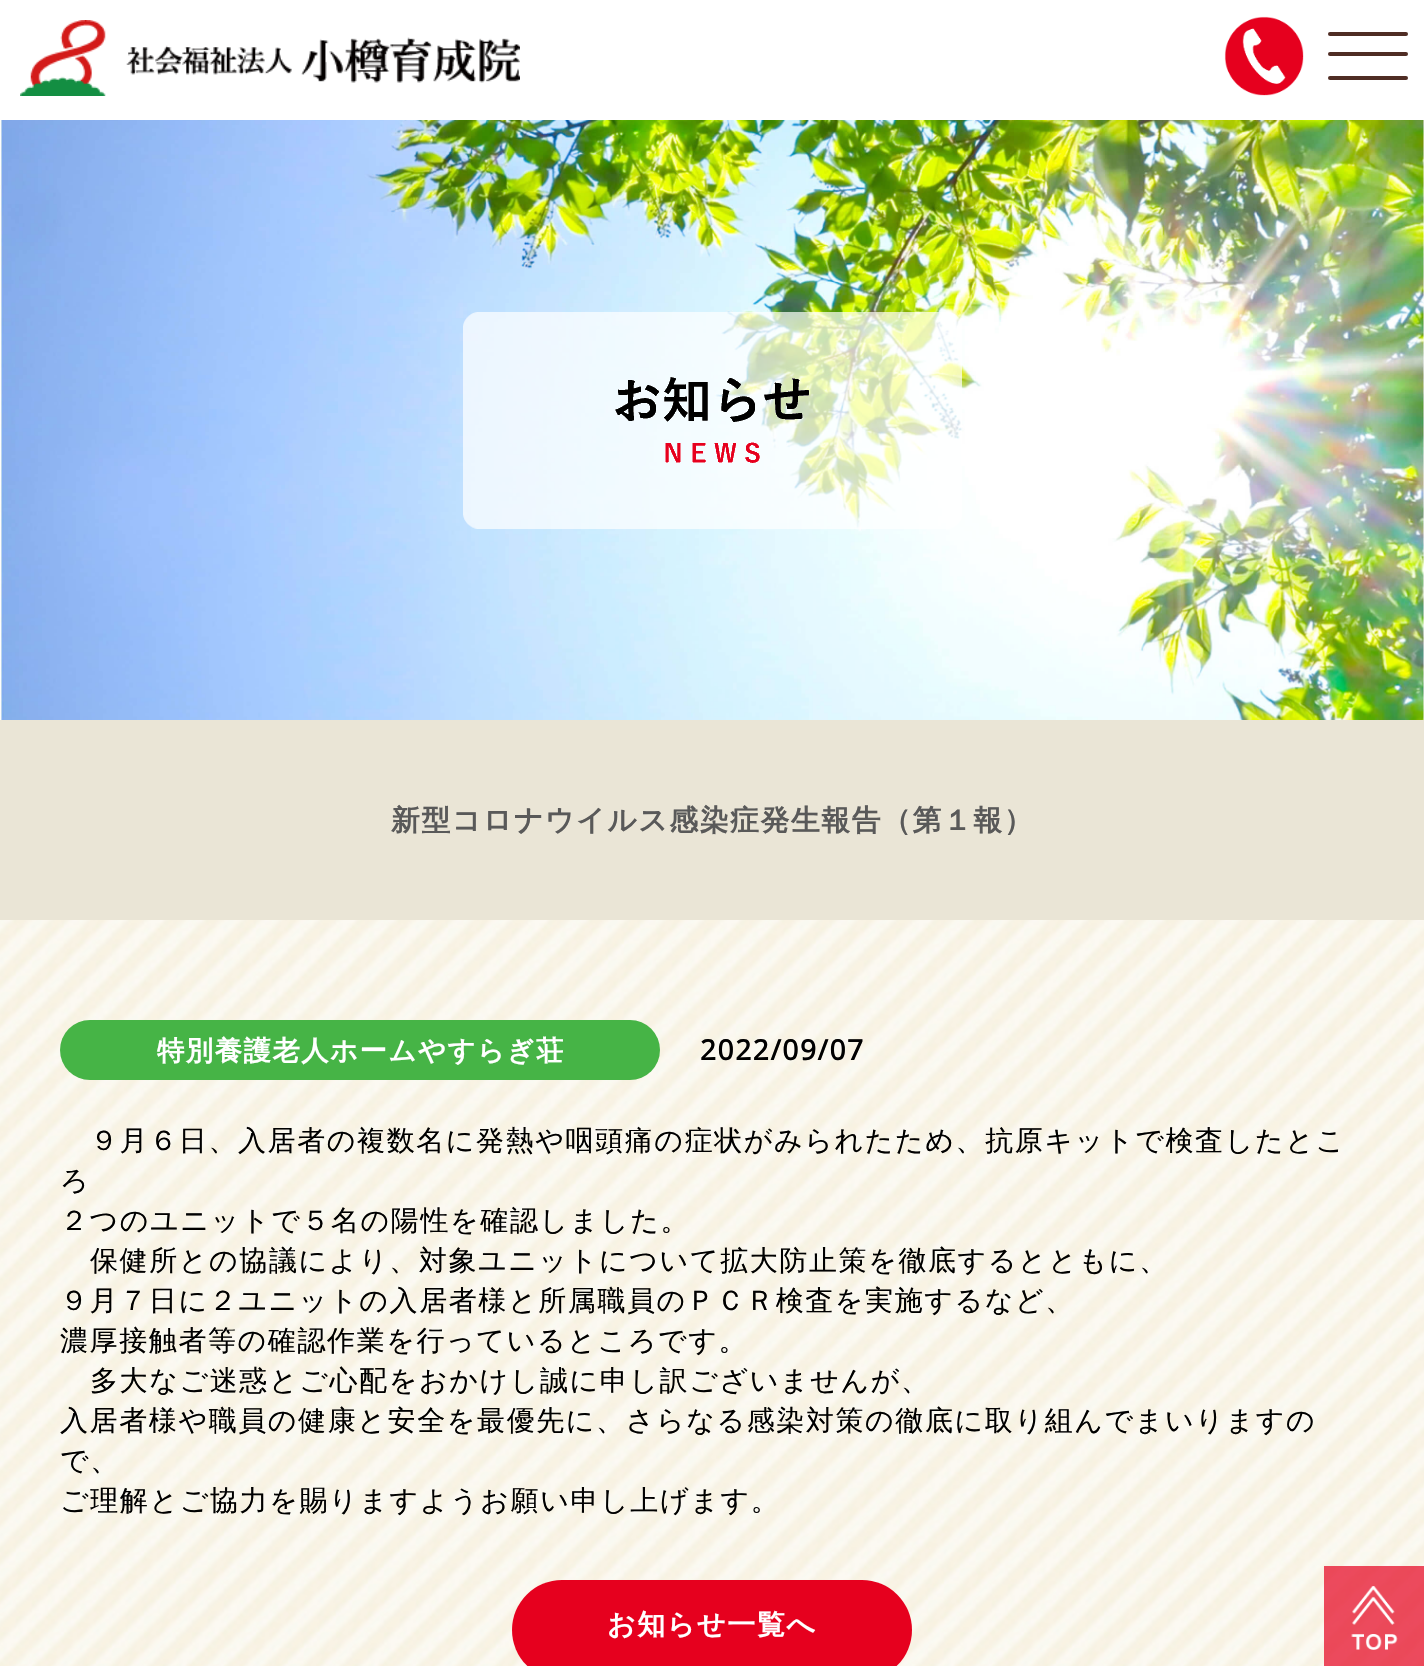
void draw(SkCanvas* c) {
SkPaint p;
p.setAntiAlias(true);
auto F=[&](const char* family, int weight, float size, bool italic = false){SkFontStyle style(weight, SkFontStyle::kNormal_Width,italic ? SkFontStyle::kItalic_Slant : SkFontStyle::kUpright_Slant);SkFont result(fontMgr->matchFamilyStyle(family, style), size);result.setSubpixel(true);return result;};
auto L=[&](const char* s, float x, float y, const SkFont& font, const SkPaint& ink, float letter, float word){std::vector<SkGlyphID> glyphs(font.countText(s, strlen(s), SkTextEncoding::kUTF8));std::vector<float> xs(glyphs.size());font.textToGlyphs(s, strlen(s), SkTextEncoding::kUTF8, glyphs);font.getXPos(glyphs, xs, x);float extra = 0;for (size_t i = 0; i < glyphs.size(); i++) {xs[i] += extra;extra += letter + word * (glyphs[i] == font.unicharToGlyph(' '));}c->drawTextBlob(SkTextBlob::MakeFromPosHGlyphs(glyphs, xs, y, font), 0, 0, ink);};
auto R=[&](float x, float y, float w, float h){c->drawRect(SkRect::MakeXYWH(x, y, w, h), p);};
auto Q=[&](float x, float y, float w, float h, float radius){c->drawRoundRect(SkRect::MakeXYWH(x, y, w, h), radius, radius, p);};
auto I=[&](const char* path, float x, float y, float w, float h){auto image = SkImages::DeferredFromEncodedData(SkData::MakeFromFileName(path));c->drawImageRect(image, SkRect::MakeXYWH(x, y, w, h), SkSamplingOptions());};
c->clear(0xffffffff);
I("1.png",1224,16,80,80);
I("2.png",20,20,500,76);
p.setColor(0xff4f2d24);
Q(1328,32,80,4,2);
Q(1328,52,80,4,2);
Q(1328,76,80,4,2);
I("3.png",0,120,1424,600);
I("4.png",463,312,499,217);
I("5.png",0,920,1424,746);
p.setColor(0xffeae5d6);
R(0,720,1424,200);
auto f1 = F("WenQuanYi Zen Hei",700,28.8);
p.setColor(0xff595959);
L("新型コロナウイルス感染症発生報告（第１報）",391,830,f1,p,1.6,0);
p.setColor(0xff46b446);
Q(60,1020,600,60,30);
auto f2 = F("WenQuanYi Zen Hei",700,27.25);
p.setColor(0xffffffff);
L("特別養護老人ホームやすらぎ荘",157,1060,f2,p,1.6,0);
auto f3 = F("Open Sans",700,28);
p.setColor(0xff000000);
L("2022/09/07",700,1060,f3,p,1.6,0);
auto f4 = F("WenQuanYi Zen Hei",500,28);
L("９月６日、入居者の複数名に発熱や咽頭痛の症状がみられたため、抗原キットで検査したとこ",90,1150,f4,p,1.6,0);
L("ろ",60,1190,f4,p,1.6,0);
L("２つのユニットで５名の陽性を確認しました。",60,1230,f4,p,1.6,0);
L("保健所との協議により、対象ユニットについて拡大防止策を徹底するとともに、",90,1270,f4,p,1.6,0);
L("９月７日に２ユニットの入居者様と所属職員のＰＣＲ検査を実施するなど、",60,1310,f4,p,1.6,0);
L("濃厚接触者等の確認作業を行っているところです。",60,1350,f4,p,1.6,0);
L("多大なご迷惑とご心配をおかけし誠に申し訳ございませんが、",90,1390,f4,p,1.6,0);
L("入居者様や職員の健康と安全を最優先に、さらなる感染対策の徹底に取り組んでまいりますの",60,1430,f4,p,1.6,0);
L("で、",60,1470,f4,p,1.6,0);
L("ご理解とご協力を賜りますようお願い申し上げます。",60,1510,f4,p,1.6,0);
p.setColor(0xffe6001e);
Q(512,1580,400,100,50);
auto f5 = F("WenQuanYi Zen Hei",700,28);
p.setColor(0xffffffff);
L("お知らせ一覧へ",607,1634,f5,p,1.6,0);
p.setColor(0xb3e6001e);
R(1324,1566,100,100);
I("6.png",1351,1586,47,64);
}
